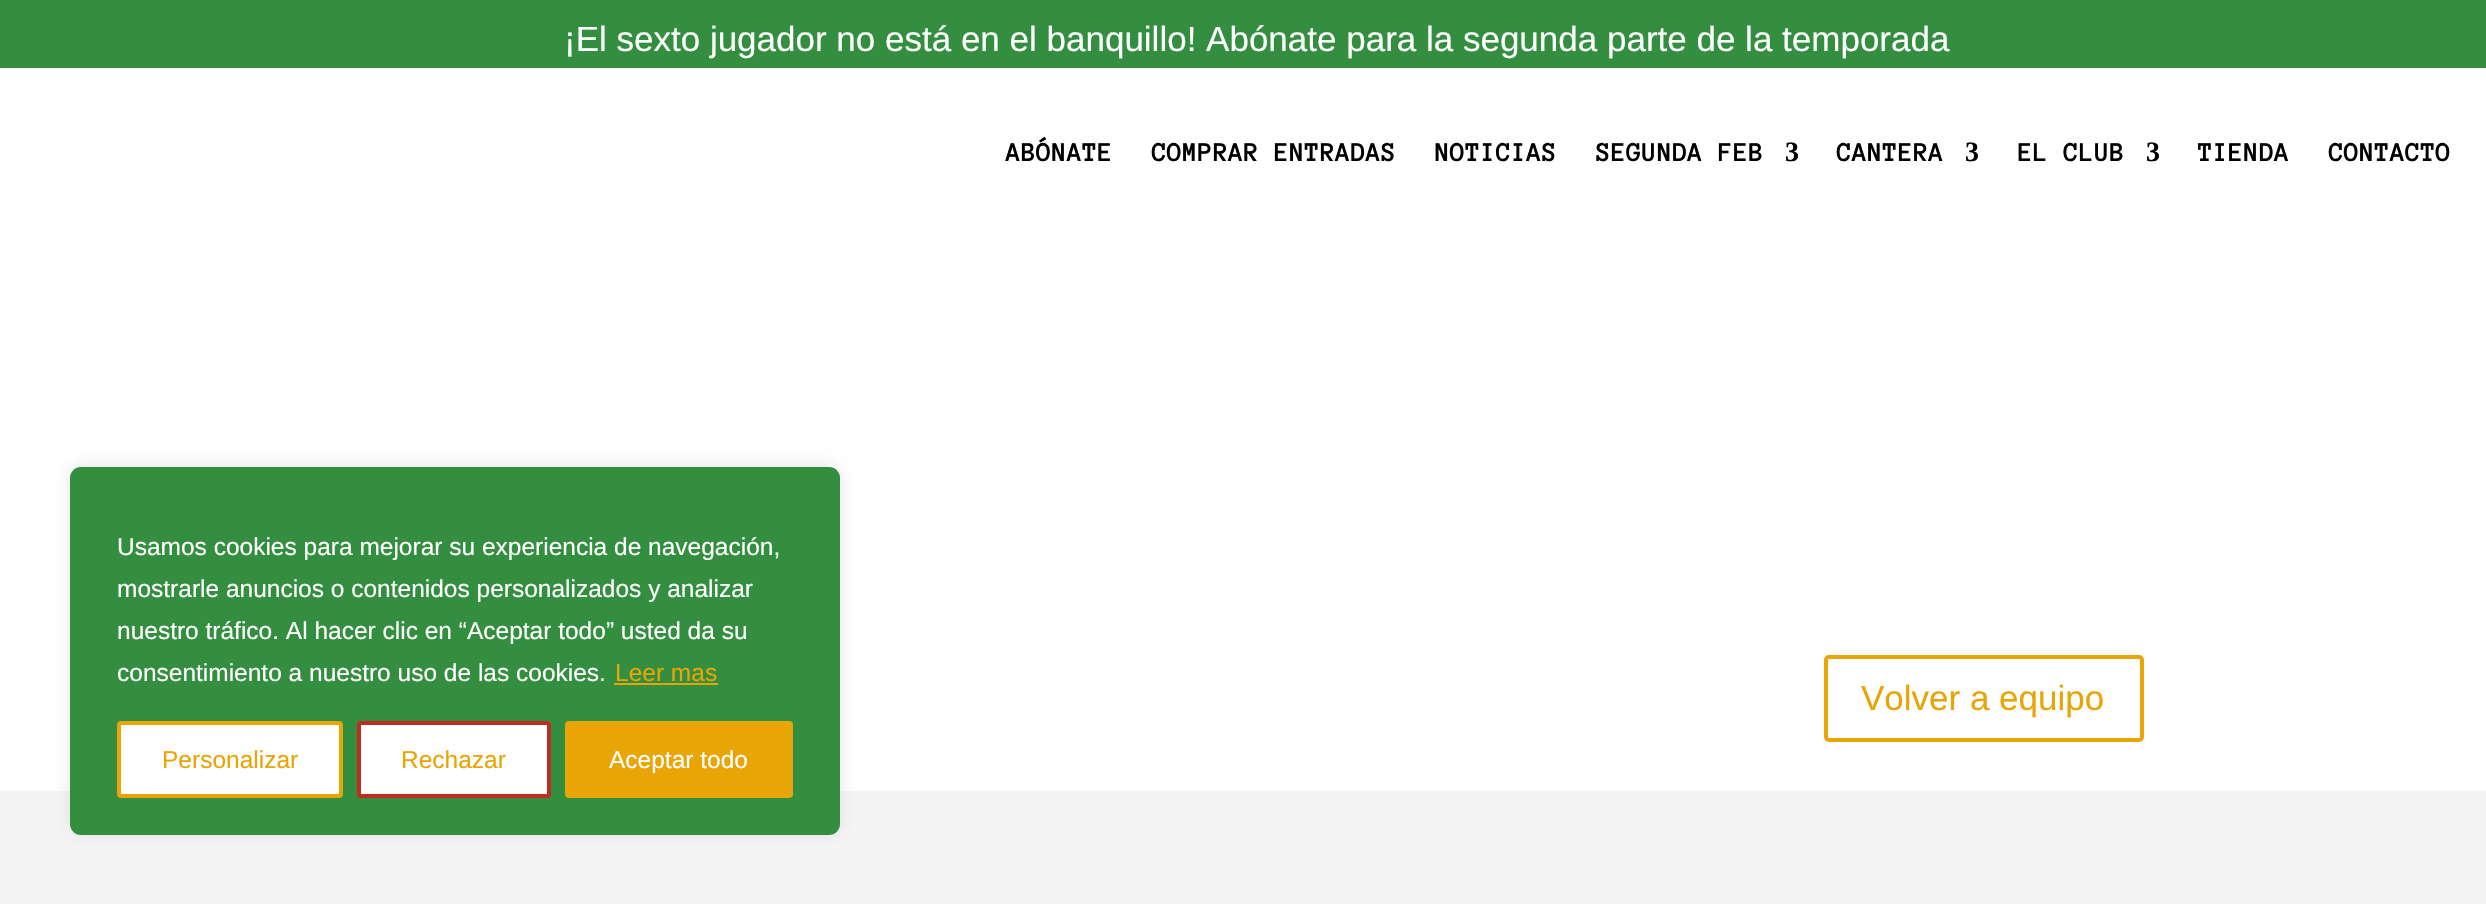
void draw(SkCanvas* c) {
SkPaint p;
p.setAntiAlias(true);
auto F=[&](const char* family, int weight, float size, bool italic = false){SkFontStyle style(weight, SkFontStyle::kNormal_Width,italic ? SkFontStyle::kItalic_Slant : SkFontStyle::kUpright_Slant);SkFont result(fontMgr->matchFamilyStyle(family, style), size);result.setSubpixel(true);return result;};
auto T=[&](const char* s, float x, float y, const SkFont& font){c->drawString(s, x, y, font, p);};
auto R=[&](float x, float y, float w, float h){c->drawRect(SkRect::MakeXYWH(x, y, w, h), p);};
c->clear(0xffffffff);
p.setColor(0xfff4f4f4);
R(0,791,2486,113);
p.setColor(0x4dacabab);
p.setMaskFilter(SkMaskFilter::MakeBlur(kNormal_SkBlurStyle, 9));
c->drawRoundRect(SkRect::MakeXYWH(70,466,770,367),11,11,p);
p.setMaskFilter(nullptr);
p.setColor(0xff338f3f);
c->drawRoundRect(SkRect::MakeXYWH(71,468,768,366),10,10,p);
p.setStroke(true);
p.setStrokeWidth(2);
c->drawRoundRect(SkRect::MakeXYWH(71,468,768,366),10,10,p);
auto f1 = F("Liberation Sans",400,24.5);
p.setStroke(false);
p.setColor(0xffffffff);
T("Usamos cookies para mejorar su experiencia de navegación,",117,555,f1);
T("mostrarle anuncios o contenidos personalizados y analizar",117,597,f1);
T("nuestro tráfico. Al hacer clic en “Aceptar todo” usted da su",117,639,f1);
T("consentimiento a nuestro uso de las cookies.",117,681,f1);
p.setColor(0xffe9a405);
T("Leer mas",615,681,f1);
R(614,683,104,2);
p.setColor(0xffffffff);
c->drawRoundRect(SkRect::MakeXYWH(119,723,222,73),2,2,p);
p.setStroke(true);
p.setStrokeWidth(4);
p.setColor(0xffe9a405);
c->drawRoundRect(SkRect::MakeXYWH(119,723,222,73),2,2,p);
p.setStroke(false);
T("Personalizar",162,768,f1);
p.setColor(0xffffffff);
c->drawRoundRect(SkRect::MakeXYWH(359,723,190,73),2,2,p);
p.setStroke(true);
p.setColor(0xffc02c22);
c->drawRoundRect(SkRect::MakeXYWH(359,723,190,73),2,2,p);
p.setStroke(false);
p.setColor(0xffe9a405);
T("Rechazar",401,768,f1);
c->drawRoundRect(SkRect::MakeXYWH(567,723,224,73),2,2,p);
p.setStroke(true);
c->drawRoundRect(SkRect::MakeXYWH(567,723,224,73),2,2,p);
p.setStroke(false);
p.setColor(0xffffffff);
T("Aceptar todo",609,768,f1);
p.setColor(0xff338f3f);
R(0,0,2486,68);
auto f2 = F("Liberation Sans",400,35);
p.setColor(0xffffffff);
T("¡El sexto jugador no está en el banquillo! Abónate para la segunda parte de la temporada",564,51,f2);
auto f3 = F("Anonymous Pro",700,28);
p.setColor(0xff000000);
T("ABÓNATE",1006,161,f3);
T("COMPRAR ENTRADAS",1152,161,f3);
T("NOTICIAS",1435,161,f3);
T("SEGUNDA FEB",1596,161,f3);
auto f4 = F("Liberation Serif",700,28);
T("3",1785,161,f4);
T("CANTERA",1837,161,f3);
T("3",1965,161,f4);
T("EL CLUB",2018,161,f3);
T("3",2146,161,f4);
T("TIENDA",2198,161,f3);
T("CONTACTO",2329,161,f3);
p.setStroke(true);
p.setColor(0xffe9a405);
c->drawRoundRect(SkRect::MakeXYWH(1826,657,316,83),3,3,p);
p.setStroke(false);
T("Volver a equipo",1861,710,f2);
}
